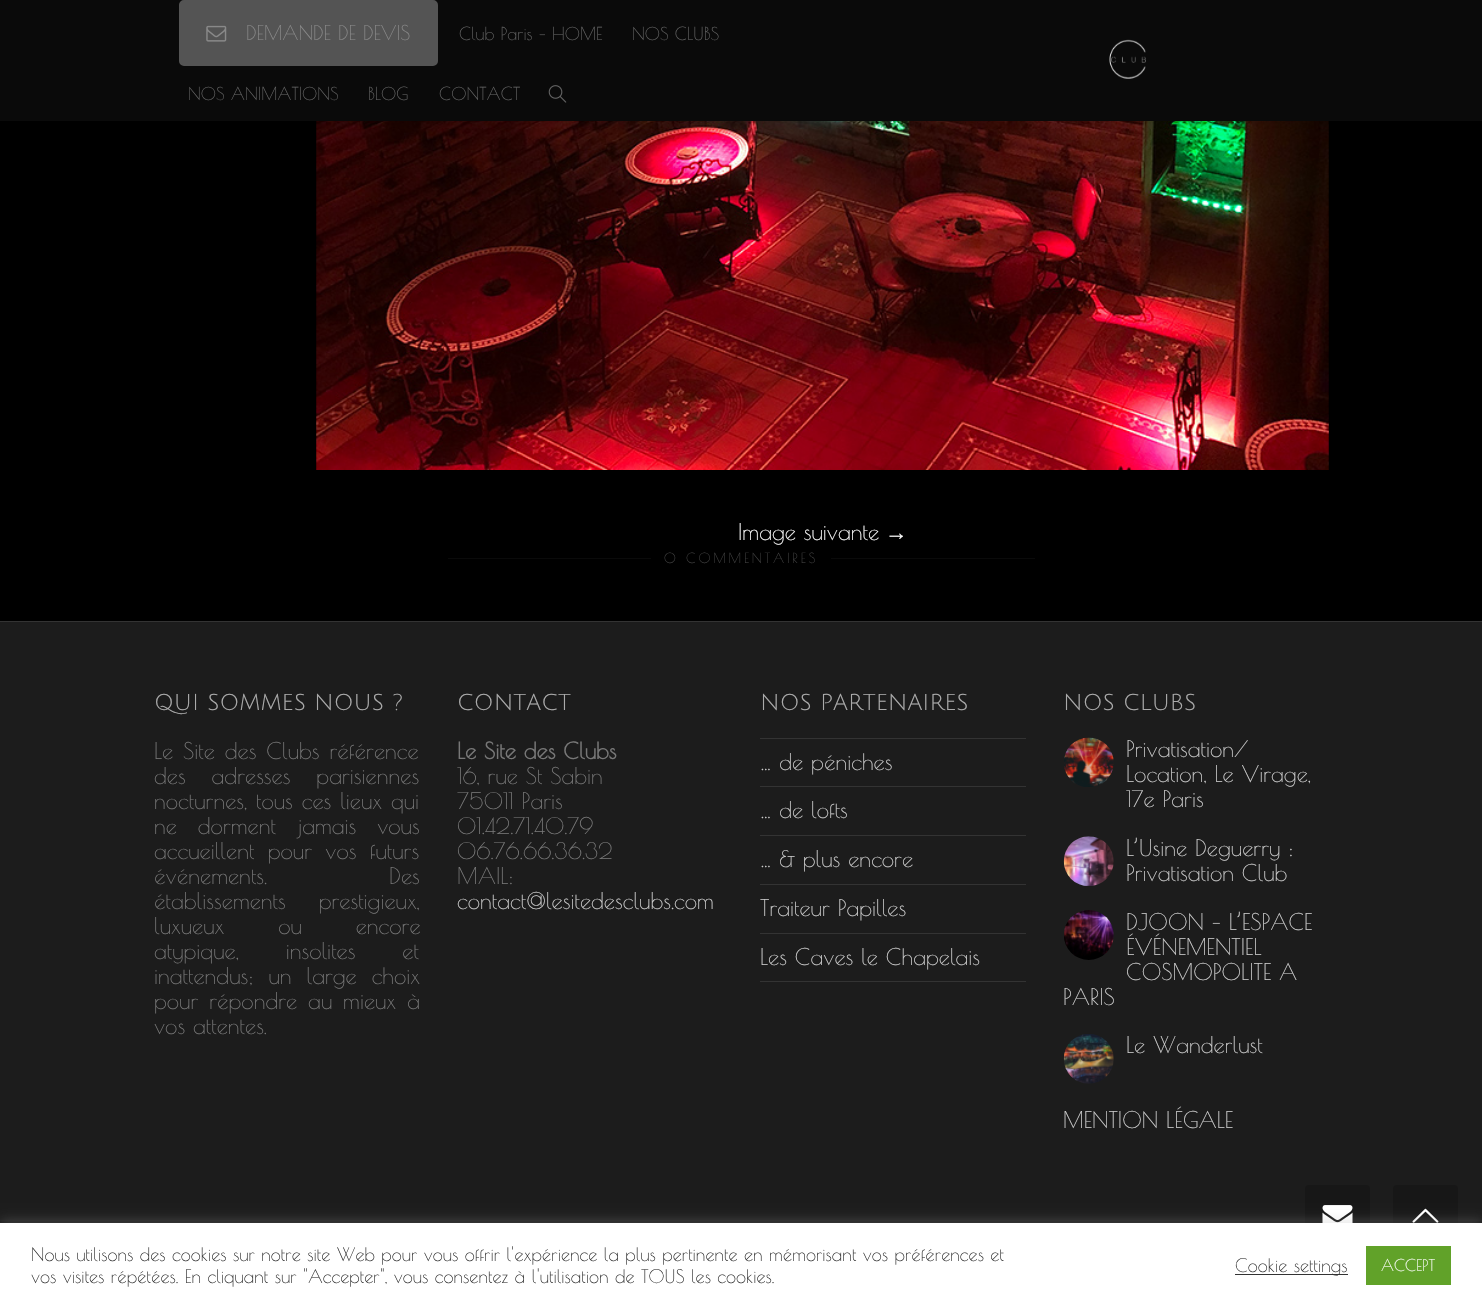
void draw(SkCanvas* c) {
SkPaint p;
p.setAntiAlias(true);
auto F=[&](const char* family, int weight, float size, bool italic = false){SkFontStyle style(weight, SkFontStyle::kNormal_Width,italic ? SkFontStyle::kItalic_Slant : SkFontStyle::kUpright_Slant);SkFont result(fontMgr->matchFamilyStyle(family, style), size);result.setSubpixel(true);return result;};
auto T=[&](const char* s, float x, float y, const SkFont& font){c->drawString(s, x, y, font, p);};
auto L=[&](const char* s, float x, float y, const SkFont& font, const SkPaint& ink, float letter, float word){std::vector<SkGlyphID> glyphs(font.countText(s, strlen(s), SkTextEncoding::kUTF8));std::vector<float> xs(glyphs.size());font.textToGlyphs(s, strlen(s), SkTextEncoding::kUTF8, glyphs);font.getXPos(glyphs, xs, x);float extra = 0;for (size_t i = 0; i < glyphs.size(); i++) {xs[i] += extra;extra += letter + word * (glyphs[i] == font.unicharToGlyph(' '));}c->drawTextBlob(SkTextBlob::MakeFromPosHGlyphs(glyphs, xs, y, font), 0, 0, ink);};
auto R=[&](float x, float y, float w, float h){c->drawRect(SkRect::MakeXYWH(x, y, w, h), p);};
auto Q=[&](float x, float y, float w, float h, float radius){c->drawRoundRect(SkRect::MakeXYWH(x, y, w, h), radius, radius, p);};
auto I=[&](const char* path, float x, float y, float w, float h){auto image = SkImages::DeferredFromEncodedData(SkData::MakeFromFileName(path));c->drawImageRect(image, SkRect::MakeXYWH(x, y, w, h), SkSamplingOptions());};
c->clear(0xff000000);
I("4.png",316,121,1013,349);
p.setColor(0x1a000000);
p.setMaskFilter(SkMaskFilter::MakeBlur(kNormal_SkBlurStyle, 6));
c->drawRect(SkRect::MakeXYWH(0,0,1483,121),p);
p.setMaskFilter(nullptr);
p.setColor(0xff0a0a0a);
R(0,0,1482,121);
p.setColor(0xff545454);
c->drawRoundRect(SkRect::MakeXYWH(180.5,1.5,256,63),3.5,3.5,p);
p.setStroke(true);
p.setStrokeWidth(3);
c->drawRoundRect(SkRect::MakeXYWH(180.5,1.5,256,63),3.5,3.5,p);
I("1.png",206,25,21,17);
auto f1 = F("Poiret One",400,20);
p.setStroke(false);
p.setColor(0xff898989);
T("DEMANDE DE DEVIS",246,40,f1);
auto f2 = F("Poiret One",400,17.5);
p.setColor(0xff636363);
T("Club Paris – HOME",459,40,f2);
T("NOS CLUBS",632,40,f2);
T("NOS ANIMATIONS",188,100,f2);
T("BLOG",368,100,f2);
T("CONTACT",439,100,f2);
I("2.png",548,85,19,18);
I("3.png",1109,39,37,40);
auto f3 = F("Poiret One",400,22.5);
p.setColor(0xffffffff);
T("Image suivante",738,540,f3);
auto f4 = F("Liberation Serif",400,22.5);
T("→",885,540,f4);
p.setColor(0xff0a0a0a);
R(448,558,587,1);
p.setColor(0xff000000);
Q(651,548,180,21,2.5);
auto f5 = F("Poiret One",400,13.75);
p.setColor(0xff444444);
L("0 COMMENTAIRES",664,563,f5,p,2.75,0);
p.setColor(0xff1c1c1c);
R(0,622,1482,599);
p.setColor(0xff333333);
R(0,621,1482,1);
auto f6 = F("Julius Sans One",400,22.5);
p.setColor(0xffaaaaaa);
T("QUI SOMMES NOUS ?",154,710,f6);
p.setColor(0xff777777);
L("Le Site des Clubs référence",154,759,f3,p,0,2);
L("des adresses parisiennes",154,784,f3,p,0,18);
L("nocturnes, tous ces lieux qui",154,809,f3,p,0,1);
L("ne dorment jamais vous",154,834,f3,p,0,13);
L("accueillent pour vos futurs",154,859,f3,p,0,5.5);
L("événements. Des",154,884,f3,p,0,114);
L("établissements prestigieux,",154,909,f3,p,0,25);
L("luxueux ou encore",154,934,f3,p,0,46);
L("atypique, insolites et",154,959,f3,p,0,39);
L("inattendus; un large choix",154,984,f3,p,0,7);
L("pour répondre au mieux à",154,1009,f3,p,0,3);
T("vos attentes.",154,1034,f3);
p.setColor(0xffaaaaaa);
T("CONTACT",457,710,f6);
auto f7 = F("Poiret One",700,22.5);
p.setColor(0xff777777);
T("Le Site des Clubs",457,759,f7);
T("16, rue St Sabin",457,784,f3);
T("75011 Paris",457,809,f3);
T("01.42.71.40.79",457,834,f3);
T("06.76.66.36.32",457,859,f3);
T("MAIL:",457,884,f3);
p.setColor(0xffcccccc);
T("contact@lesitedesclubs.com",457,909,f3);
p.setColor(0xffaaaaaa);
T("NOS PARTENAIRES",760,710,f6);
p.setColor(0xff333333);
R(760,738,266,1);
R(760,786,266,1);
p.setColor(0xffcccccc);
T("… de péniches",760,770,f3);
p.setColor(0xff333333);
R(760,835,266,1);
p.setColor(0xffcccccc);
T("… de lofts",760,818,f3);
p.setColor(0xff333333);
R(760,884,266,1);
p.setColor(0xffcccccc);
T("… & plus encore",760,867,f3);
p.setColor(0xff333333);
R(760,933,266,1);
p.setColor(0xffcccccc);
T("Traiteur Papilles",760,916,f3);
p.setColor(0xff333333);
R(760,981,266,1);
p.setColor(0xffcccccc);
T("Les Caves le Chapelais",760,965,f3);
p.setColor(0xffaaaaaa);
T("NOS CLUBS",1063,710,f6);
I("5.png",1064,737,50,50);
p.setColor(0xffcccccc);
T("Privatisation/",1126,757,f3);
T("Location, Le Virage,",1126,782,f3);
T("17e Paris",1126,807,f3);
I("6.png",1063,836,51,50);
T("L’Usine Deguerry :",1126,856,f3);
T("Privatisation Club",1126,881,f3);
I("7.png",1064,910,50,50);
T("DJOON – L’ESPACE",1126,930,f3);
T("ÉVÉNEMENTIEL",1126,955,f3);
T("COSMOPOLITE A",1126,980,f3);
T("PARIS",1063,1005,f3);
I("8.png",1063,1034,51,50);
T("Le Wanderlust",1126,1053,f3);
T("MENTION LÉGALE",1063,1128,f3);
p.setColor(0xff171717);
R(0,1221,1482,2);
p.setColor(0x33000000);
Q(1305,1185,65,61,4);
I("9.png",1322,1205,31,18);
Q(1393,1185,65,61,4);
I("10.png",1412,1208,27,15);
p.setColor(0x4dacabab);
p.setMaskFilter(SkMaskFilter::MakeBlur(kNormal_SkBlurStyle, 6));
c->drawRect(SkRect::MakeXYWH(0,1221,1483,87),p);
p.setMaskFilter(nullptr);
p.setColor(0xffffffff);
R(0,1223,1482,85);
auto f8 = F("Poiret One",400,18.33);
p.setColor(0xff333333);
T("Nous utilisons des cookies sur notre site Web pour vous offrir l'expérience la plus pertinente en mémorisant vos préférences et",31,1261,f8);
T("vos visites répétées. En cliquant sur \"Accepter\", vous consentez à l'utilisation de TOUS les cookies.",31,1283,f8);
R(1235,1274,113,1);
T("Cookie settings",1235,1272,f8);
p.setColor(0xff61a229);
R(1366,1246,85,39);
auto f9 = F("Poiret One",400,16);
p.setColor(0xffffffff);
T("ACCEPT",1381,1271,f9);
}
